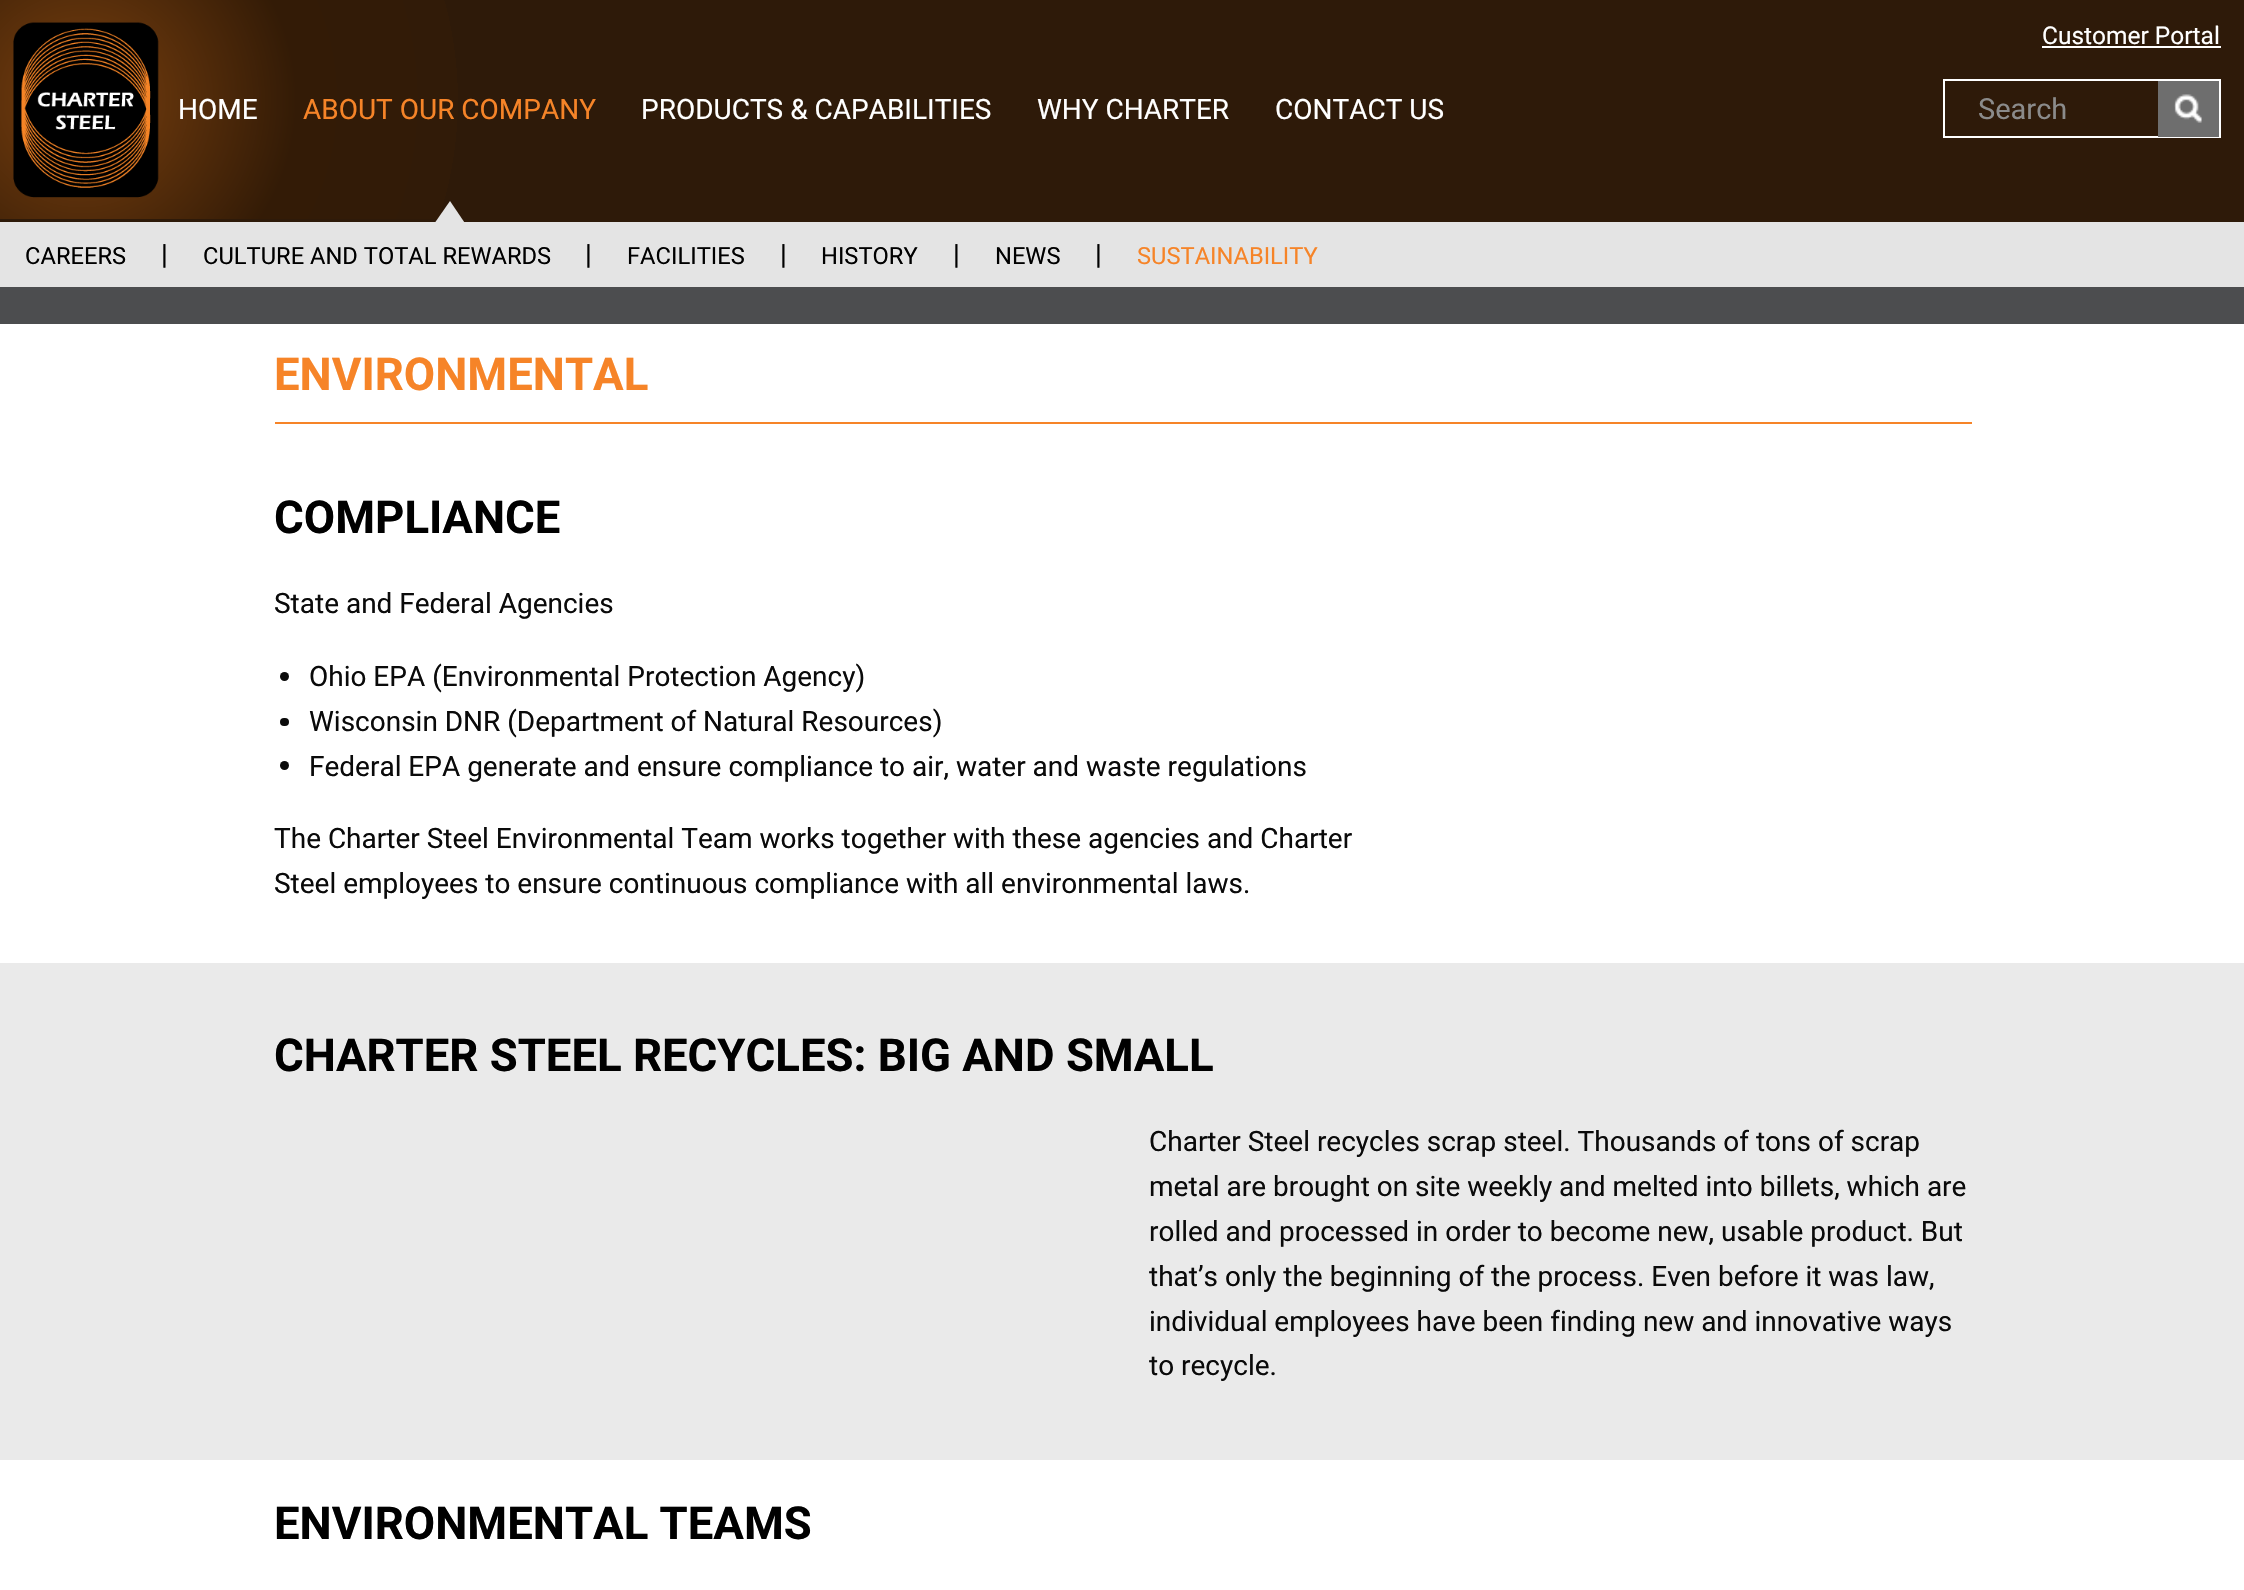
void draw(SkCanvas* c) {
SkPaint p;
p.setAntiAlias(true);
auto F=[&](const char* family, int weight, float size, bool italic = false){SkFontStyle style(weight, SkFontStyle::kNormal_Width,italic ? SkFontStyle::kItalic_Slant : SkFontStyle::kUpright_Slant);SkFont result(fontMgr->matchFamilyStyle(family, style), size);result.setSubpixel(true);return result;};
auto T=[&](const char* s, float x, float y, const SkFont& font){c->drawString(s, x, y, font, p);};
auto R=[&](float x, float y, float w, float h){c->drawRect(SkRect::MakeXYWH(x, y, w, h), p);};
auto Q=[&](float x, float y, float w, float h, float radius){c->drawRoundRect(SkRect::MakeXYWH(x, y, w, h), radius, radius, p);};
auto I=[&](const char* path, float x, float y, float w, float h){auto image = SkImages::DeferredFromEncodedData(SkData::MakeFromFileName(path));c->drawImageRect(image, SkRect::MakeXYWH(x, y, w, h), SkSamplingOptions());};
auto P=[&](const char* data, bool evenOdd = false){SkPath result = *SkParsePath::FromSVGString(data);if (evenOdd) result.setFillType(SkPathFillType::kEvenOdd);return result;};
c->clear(0xffffffff);
p.setColor(0xff2e1a09);
R(0,0,2244,222);
p.setColor(0xffe4e4e4);
R(0,222,2244,65);
{
const SkColor colors[] = {0xff7a400f,0xff331b06,0xff311b08,0xff2f1a08,0xff2e1a09,0xff2e1a09};
const float stops[] = {0,.2,.35,.35,.35,.4};
p.setShader(SkGradientShader::MakeRadial({82,100}, 1074, colors, stops, 6, SkTileMode::kClamp));
p.setAlpha(255);
}
R(0,0,458,219);
I("1.png",13,22,146,176);
auto f1 = F("Roboto",400,24.5);
p.setShader(nullptr);
p.setColor(0xffffffff);
T("Customer Portal",2042,44,f1);
R(2042,46,179,2);
auto f2 = F("Roboto",400,28);
p.setColor(0xfff68428);
T("ABOUT OUR COMPANY",303,119,f2);
p.setColor(0xffe4e4e4);
c->drawPath(P("M465.5 224h-31.5l16-23z"),p);
auto f3 = F("Roboto",400,23.7);
p.setColor(0xff000000);
T("CAREERS",25,264,f3);
T("|",161,264,f2);
T("CULTURE AND TOTAL REWARDS",203,264,f3);
T("|",585,264,f2);
T("FACILITIES",627,264,f3);
T("|",780,264,f2);
T("HISTORY",821,264,f3);
T("|",953,264,f2);
T("NEWS",995,264,f3);
T("|",1095,264,f2);
p.setColor(0xfff68428);
T("SUSTAINABILITY",1137,264,f3);
p.setColor(0xffffffff);
T("HOME",178,119,f2);
T("PRODUCTS & CAPABILITIES",641,119,f2);
T("WHY CHARTER",1037,119,f2);
T("CONTACT US",1275,119,f2);
p.setStroke(true);
p.setStrokeWidth(2);
c->drawRect(SkRect::MakeXYWH(1944,80,276,57),p);
auto f4 = F("Roboto",400,29);
p.setStroke(false);
p.setColor(0xff8b8b8b);
T("Search",1978,119,f4);
p.setColor(0xff6e6e6e);
R(2158,81,61,56);
I("2.png",2174,94,28,29);
p.setColor(0xff4c4d4f);
R(0,287,2244,37);
p.setColor(0xfff68428);
R(275,422,1697,2);
auto f5 = F("Roboto",700,45.5);
T("ENVIRONMENTAL",274,390,f5);
p.setColor(0xff000000);
T("COMPLIANCE",274,533,f5);
p.setColor(0xff0a0a0a);
T("State and Federal Agencies",274,613,f2);
c->drawCircle(284.5,676.5,4.5,p);
T("Ohio EPA (Environmental Protection Agency)",309,686,f2);
Q(280,718,9,8,4);
T("Wisconsin DNR (Department of Natural Resources)",309,731,f2);
c->drawCircle(284.5,765.5,4.5,p);
T("Federal EPA generate and ensure compliance to air, water and waste regulations",309,776,f2);
T("The Charter Steel Environmental Team works together with these agencies and Charter",274,848,f2);
T("Steel employees to ensure continuous compliance with all environmental laws.",274,893,f2);
p.setColor(0xffeaeaea);
R(0,963,2244,497);
p.setColor(0xff000000);
T("CHARTER STEEL RECYCLES: BIG AND SMALL",274,1071,f5);
p.setColor(0xff0a0a0a);
T("Charter Steel recycles scrap steel. Thousands of tons of scrap",1149,1151,f2);
T("metal are brought on site weekly and melted into billets, which are",1149,1196,f2);
T("rolled and processed in order to become new, usable product. But",1149,1241,f2);
T("that’s only the beginning of the process. Even before it was law,",1149,1286,f2);
T("individual employees have been finding new and innovative ways",1149,1331,f2);
T("to recycle.",1149,1375,f2);
p.setColor(0xff000000);
T("ENVIRONMENTAL TEAMS",274,1539,f5);
}
